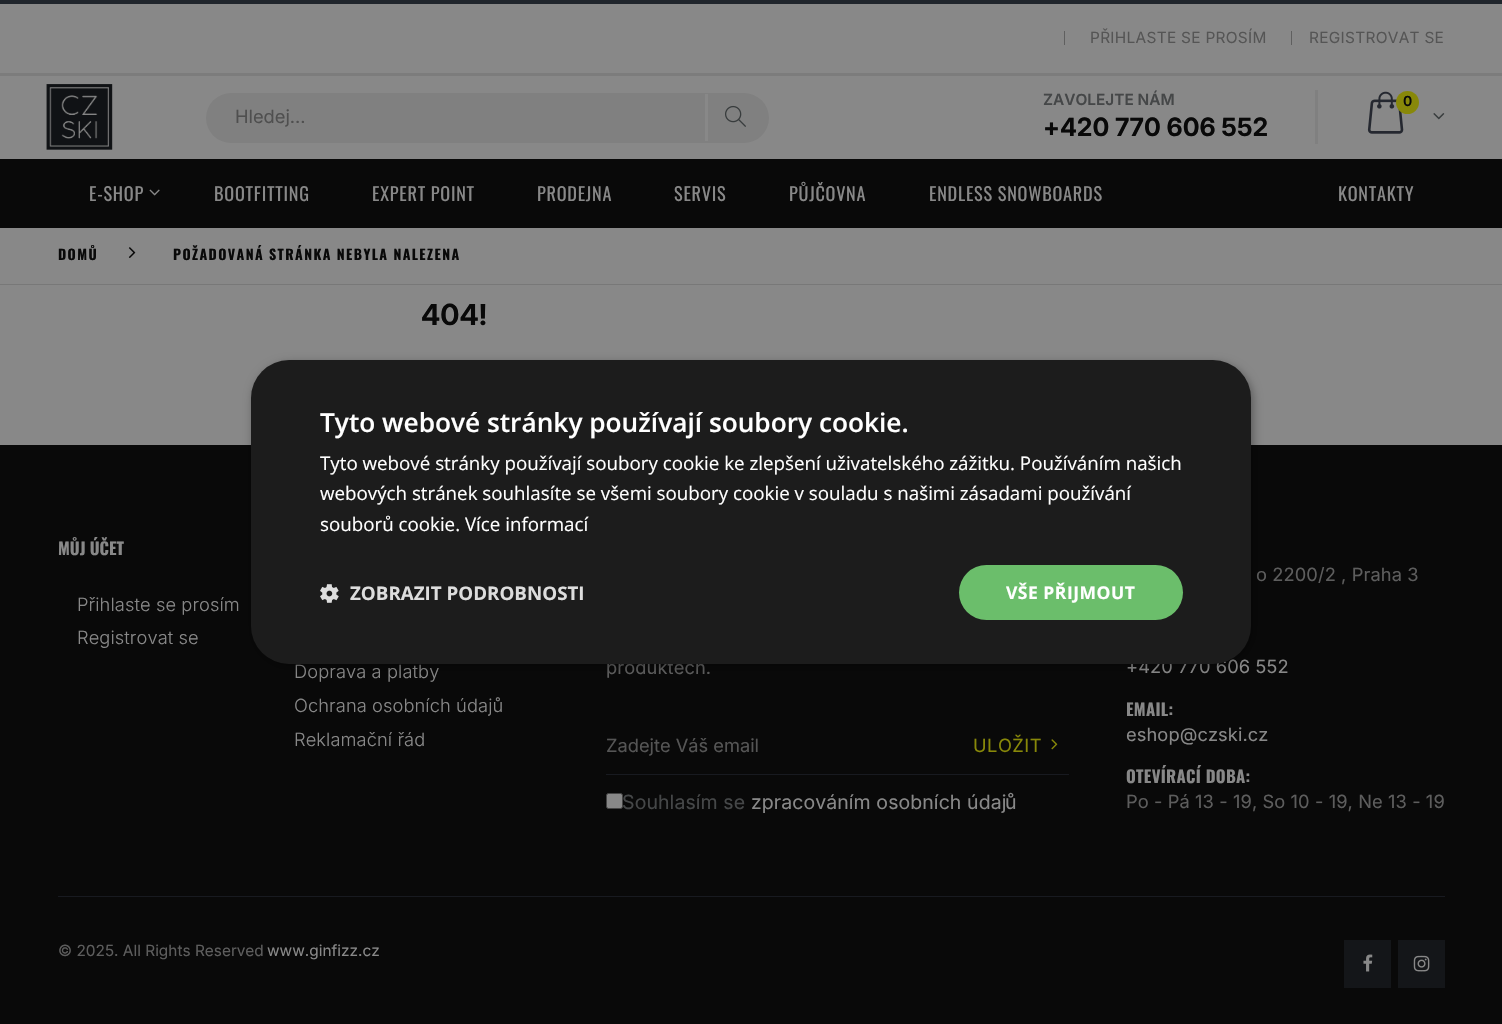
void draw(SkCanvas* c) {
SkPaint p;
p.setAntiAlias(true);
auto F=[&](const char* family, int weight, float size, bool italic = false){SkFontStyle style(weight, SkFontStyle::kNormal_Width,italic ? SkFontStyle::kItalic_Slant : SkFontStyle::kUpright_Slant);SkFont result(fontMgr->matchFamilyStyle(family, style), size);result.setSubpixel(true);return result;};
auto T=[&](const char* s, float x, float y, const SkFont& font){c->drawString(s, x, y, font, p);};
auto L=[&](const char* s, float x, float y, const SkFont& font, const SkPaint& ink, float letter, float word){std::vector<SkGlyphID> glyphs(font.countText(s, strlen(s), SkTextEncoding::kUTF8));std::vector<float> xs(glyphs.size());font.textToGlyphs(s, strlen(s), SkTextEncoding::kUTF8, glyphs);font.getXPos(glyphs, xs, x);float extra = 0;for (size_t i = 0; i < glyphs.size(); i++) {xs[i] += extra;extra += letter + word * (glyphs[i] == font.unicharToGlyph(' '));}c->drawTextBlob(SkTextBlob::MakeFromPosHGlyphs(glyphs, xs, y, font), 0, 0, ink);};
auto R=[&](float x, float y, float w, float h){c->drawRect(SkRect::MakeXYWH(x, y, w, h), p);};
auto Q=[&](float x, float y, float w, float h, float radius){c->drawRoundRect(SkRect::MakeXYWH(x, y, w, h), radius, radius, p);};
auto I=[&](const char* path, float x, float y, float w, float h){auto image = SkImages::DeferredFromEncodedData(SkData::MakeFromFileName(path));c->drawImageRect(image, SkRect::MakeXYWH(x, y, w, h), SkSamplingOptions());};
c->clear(0xff888888);
p.setColor(0xff20252c);
R(0,0,1502,4);
p.setColor(0xff7c7c7c);
R(0,73,1502,3);
p.setColor(0xff5f5f5f);
R(1064,31,1,14);
auto f1 = F("Inter",400,15.4);
p.setColor(0xff555555);
L("PŘIHLASTE SE PROSÍM",1090,43,f1,p,.3,0);
p.setColor(0xff5f5f5f);
R(1291,31,1,14);
p.setColor(0xff555555);
L("REGISTROVAT SE",1309,43,f1,p,.3,0);
I("1.png",46,84,67,66);
p.setColor(0xff808080);
Q(206,93,563,50,25);
auto f2 = F("Inter",400,18.25);
p.setColor(0xff4f4f4f);
T("Hledej...",235,123,f2);
p.setColor(0xff888888);
R(705,94,3,47);
I("2.png",725,105,21,22);
auto f3 = F("Inter",600,15.4);
p.setColor(0xff454748);
T("ZAVOLEJTE NÁM",1043,105,f3);
p.setColor(0xff808080);
R(1315,90,3,54);
auto f4 = F("Inter",700,25.25);
p.setColor(0xff090909);
T("+420 770 606 552",1043,136,f4);
I("3.png",1367,91,37,43);
p.setColor(0xff888809);
c->drawCircle(1407.5,102.5,11.5,p);
auto f5 = F("Inter",600,14);
p.setColor(0xff090909);
T("0",1403,106,f5);
I("4.png",1433,113,12,7);
R(0,159,1502,69);
auto f6 = F("Oswald",400,18.25);
p.setColor(0xff888888);
L("E-SHOP",89,201,f6,p,.75,0);
I("5.png",149,189,11,7);
L("BOOTFITTING",214,201,f6,p,.75,0);
L("EXPERT POINT",372,201,f6,p,.75,0);
L("PRODEJNA",537,201,f6,p,.75,0);
L("SERVIS",674,201,f6,p,.75,0);
L("PŮJČOVNA",789,201,f6,p,.75,0);
L("ENDLESS SNOWBOARDS",929,201,f6,p,.75,0);
L("KONTAKTY",1338,201,f6,p,.75,0);
p.setColor(0xff787878);
R(0,284,1502,1);
auto f7 = F("Oswald",700,14);
p.setColor(0xff090909);
L("DOMŮ",58,260,f7,p,1.4,0);
I("6.png",128,247,8,11);
L("POŽADOVANÁ STRÁNKA NEBYLA NALEZENA",173,260,f7,p,1.4,0);
auto f8 = F("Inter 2",700,29);
T("404!",421,325,f8);
R(0,445,1502,579);
auto f9 = F("Oswald",700,16.75);
p.setColor(0xff888888);
T("MŮJ ÚČET",58,555,f9);
auto f10 = F("Inter",300,18.25);
L("Přihlaste se prosím",77,611,f10,p,.1,0);
L("Registrovat se",77,644,f10,p,.1,0);
L("Doprava a platby",294,678,f10,p,.1,0);
L("Ochrana osobních údajů",294,712,f10,p,.1,0);
L("Reklamační řád",294,746,f10,p,.1,0);
p.setColor(0xff5d5d5d);
L("produktech.",606,674,f2,p,.1,0);
p.setColor(0xff181a20);
R(606,774,463,1);
p.setColor(0xff555555);
T("Zadejte Váš email",606,752,f2);
p.setColor(0xff888809);
L("ULOŽIT",973,752,f2,p,.5,0);
I("7.png",1051,739,7,11);
p.setColor(0xff888888);
c->drawRoundRect(SkRect::MakeXYWH(606.5,793.5,16,15),2,2,p);
p.setStroke(true);
p.setStrokeWidth(1);
p.setColor(0xff444444);
c->drawRoundRect(SkRect::MakeXYWH(606.5,793.5,16,15),2,2,p);
auto f11 = F("Inter 2",400,19.6);
p.setStroke(false);
p.setColor(0xff454748);
L("Souhlasím se",622,809,f11,p,.1,0);
p.setColor(0xff888888);
L("zpracováním osobních údaj",751,809,f11,p,.1,0);
auto f12 = F("Inter",400,19.6);
L("ů",1005,809,f12,p,.1,0);
p.setColor(0xff5d5d5d);
L("o 2200/2 , Praha 3",1256,581,f2,p,.1,0);
p.setColor(0xff888888);
L("+420 770 606 552",1126,673,f2,p,.1,0);
L("EMAIL:",1126,716,f9,p,.3,0);
L("eshop@czski.cz",1126,741,f2,p,.1,0);
L("OTEVÍRACÍ DOBA:",1126,783,f9,p,.3,0);
p.setColor(0xff5d5d5d);
L("Po - Pá 13 - 19, So 10 - 19, Ne 13 - 19",1126,808,f2,p,.1,0);
p.setColor(0xff181a20);
R(58,896,1387,1);
p.setColor(0xff5d5d5d);
T("© 2025. All Rights Reserved",58,956,f1);
p.setColor(0xff888888);
T("www.ginfizz.cz",267,956,f1);
p.setColor(0xff141619);
R(1344,940,47,48);
I("8.png",1363,954,10,18);
R(1398,940,47,48);
I("9.png",1413,955,17,17);
p.setColor(0x59000000);
p.setMaskFilter(SkMaskFilter::MakeBlur(kNormal_SkBlurStyle, 5));
c->drawRoundRect(SkRect::MakeXYWH(253,363,1000,303),38,38,p);
p.setMaskFilter(nullptr);
p.setColor(0xff1c1c1c);
Q(251,360,1000,304,38);
auto f13 = F("Open Sans",600,26.25);
p.setColor(0xffffffff);
T("Tyto webové stránky používají soubory cookie.",320,432,f13);
auto f14 = F("Open Sans",400,18.75);
T("Tyto webové stránky používají soubory cookie ke zlepšení uživatelského zážitku. Používáním našich",320,470,f14);
T("webových stránek souhlasíte se všemi soubory cookie v souladu s našimi zásadami používání",320,500,f14);
T("souborů cookie. Více informací",320,531,f14);
I("10.png",320,584,19,19);
auto f15 = F("Open Sans",700,18.75);
p.setColor(0xffdddddd);
T("ZOBRAZIT PODROBNOSTI",350,600,f15);
p.setColor(0xff6bbe6b);
Q(959,565,224,55,27.5);
auto f16 = F("Open Sans",700,17.5);
p.setColor(0xffffffff);
L("VŠE PŘIJMOUT",1006,599,f16,p,.5,0);
}
